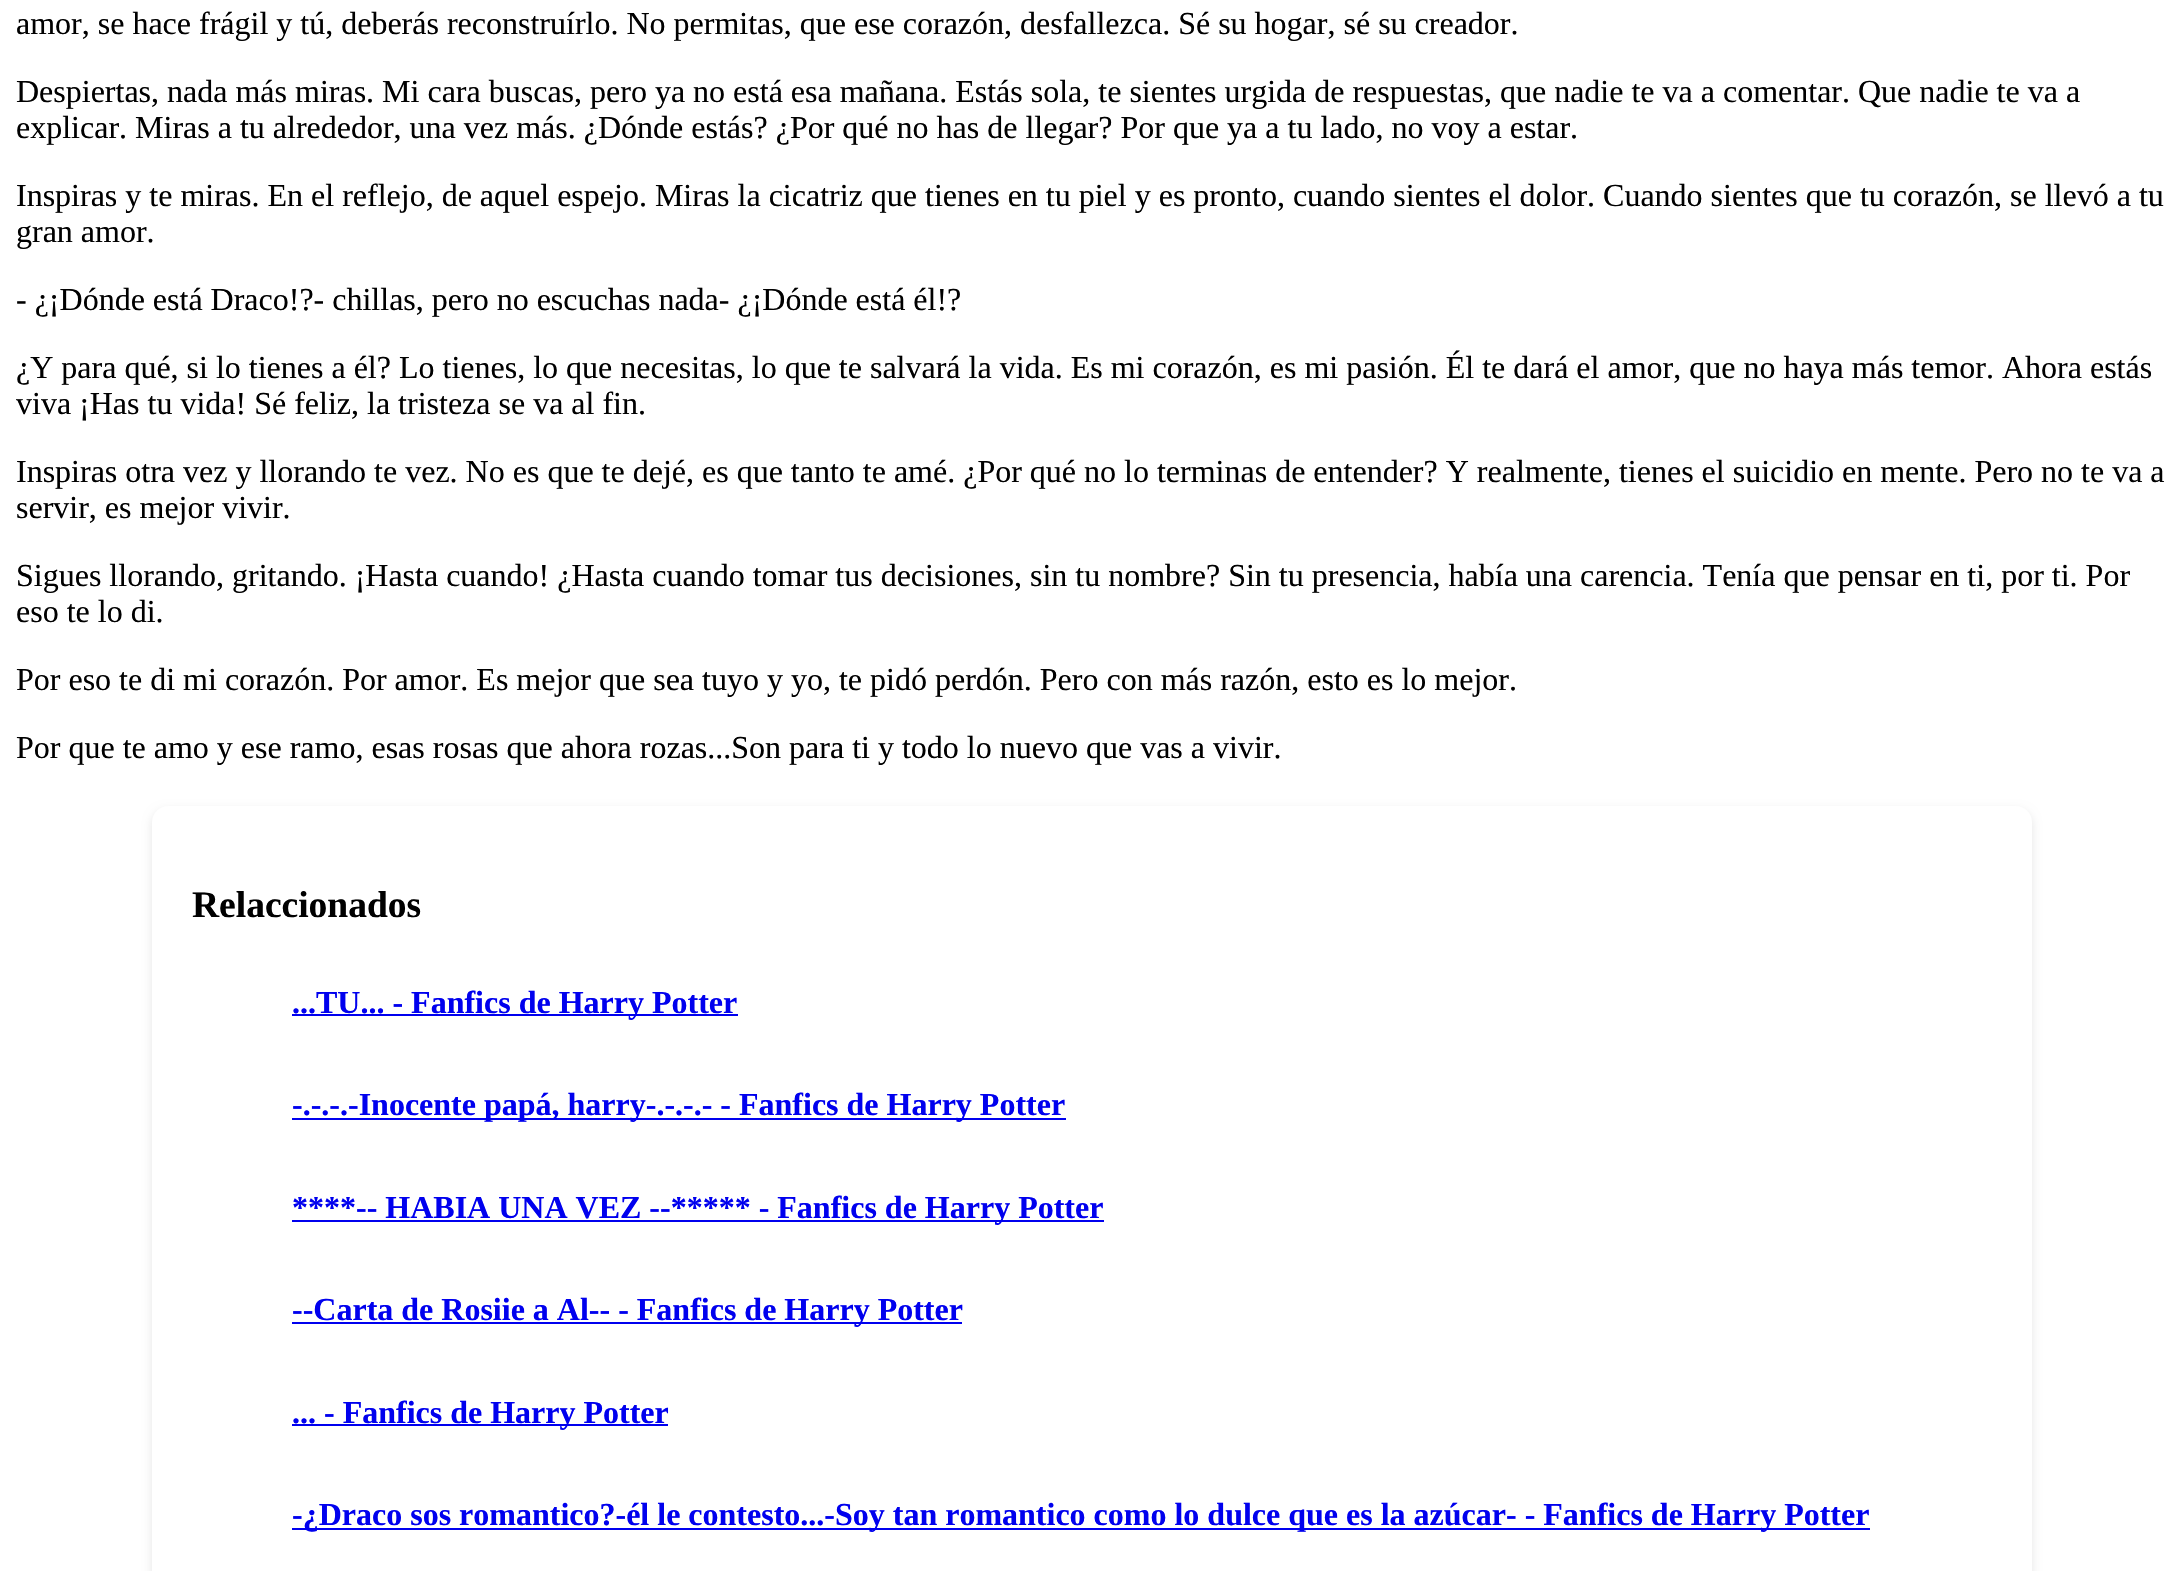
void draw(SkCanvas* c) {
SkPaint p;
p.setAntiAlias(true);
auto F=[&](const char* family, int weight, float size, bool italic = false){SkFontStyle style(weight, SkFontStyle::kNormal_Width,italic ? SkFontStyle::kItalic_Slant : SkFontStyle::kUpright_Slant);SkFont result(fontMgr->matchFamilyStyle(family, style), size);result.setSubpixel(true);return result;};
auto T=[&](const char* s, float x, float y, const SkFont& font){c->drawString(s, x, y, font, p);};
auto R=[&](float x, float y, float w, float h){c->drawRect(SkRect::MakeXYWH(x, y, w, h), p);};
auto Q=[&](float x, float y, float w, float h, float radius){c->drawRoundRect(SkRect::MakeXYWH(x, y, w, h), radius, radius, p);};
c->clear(0xffffffff);
auto f1 = F("Liberation Serif",400,32);
p.setColor(0xff000000);
T("amor, se hace frágil y tú, deberás reconstruírlo. No permitas, que ese corazón, desfallezca. Sé su hogar, sé su creador.",16,34,f1);
T("Despiertas, nada más miras. Mi cara buscas, pero ya no está esa mañana. Estás sola, te sientes urgida de respuestas, que nadie te va a comentar. Que nadie te va a",16,102,f1);
T("explicar. Miras a tu alrededor, una vez más. ¿Dónde estás? ¿Por qué no has de llegar? Por que ya a tu lado, no voy a estar.",16,138,f1);
T("Inspiras y te miras. En el reflejo, de aquel espejo. Miras la cicatriz que tienes en tu piel y es pronto, cuando sientes el dolor. Cuando sientes que tu corazón, se llevó a tu",16,206,f1);
T("gran amor.",16,242,f1);
T("- ¿¡Dónde está Draco!?- chillas, pero no escuchas nada- ¿¡Dónde está él!?",16,310,f1);
T("¿Y para qué, si lo tienes a él? Lo tienes, lo que necesitas, lo que te salvará la vida. Es mi corazón, es mi pasión. Él te dará el amor, que no haya más temor. Ahora estás",16,378,f1);
T("viva ¡Has tu vida! Sé feliz, la tristeza se va al fin.",16,414,f1);
T("Inspiras otra vez y llorando te vez. No es que te dejé, es que tanto te amé. ¿Por qué no lo terminas de entender? Y realmente, tienes el suicidio en mente. Pero no te va a",16,482,f1);
T("servir, es mejor vivir.",16,518,f1);
T("Sigues llorando, gritando. ¡Hasta cuando! ¿Hasta cuando tomar tus decisiones, sin tu nombre? Sin tu presencia, había una carencia. Tenía que pensar en ti, por ti. Por",16,586,f1);
T("eso te lo di.",16,622,f1);
T("Por eso te di mi corazón. Por amor. Es mejor que sea tuyo y yo, te pidó perdón. Pero con más razón, esto es lo mejor.",16,690,f1);
T("Por que te amo y ese ramo, esas rosas que ahora rozas...Son para ti y todo lo nuevo que vas a vivir.",16,758,f1);
p.setColor(0x1a000000);
p.setMaskFilter(SkMaskFilter::MakeBlur(kNormal_SkBlurStyle, 5));
c->drawRoundRect(SkRect::MakeXYWH(152,810,1880,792),16,16,p);
p.setMaskFilter(nullptr);
p.setColor(0xffffffff);
Q(152,806,1880,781,16);
auto f2 = F("Liberation Serif",700,37.5);
p.setColor(0xff000000);
T("Relaccionados",192,917,f2);
p.setColor(0xff0000ee);
R(292,1014,446,2);
auto f3 = F("Liberation Serif",700,32);
T("...TU... - Fanfics de Harry Potter",292,1013,f3);
R(292,1118,774,2);
T("-.-.-.-Inocente papá, harry-.-.-.- - Fanfics de Harry Potter",292,1115,f3);
R(292,1220,812,2);
T("****-- HABIA UNA VEZ --***** - Fanfics de Harry Potter",292,1218,f3);
R(292,1322,670,2);
T("--Carta de Rosiie a Al-- - Fanfics de Harry Potter",292,1320,f3);
R(292,1424,376,2);
T("... - Fanfics de Harry Potter",292,1423,f3);
R(292,1528,1578,2);
T("-¿Draco sos romantico?-él le contesto...-Soy tan romantico como lo dulce que es la azúcar- - Fanfics de Harry Potter",292,1525,f3);
}
